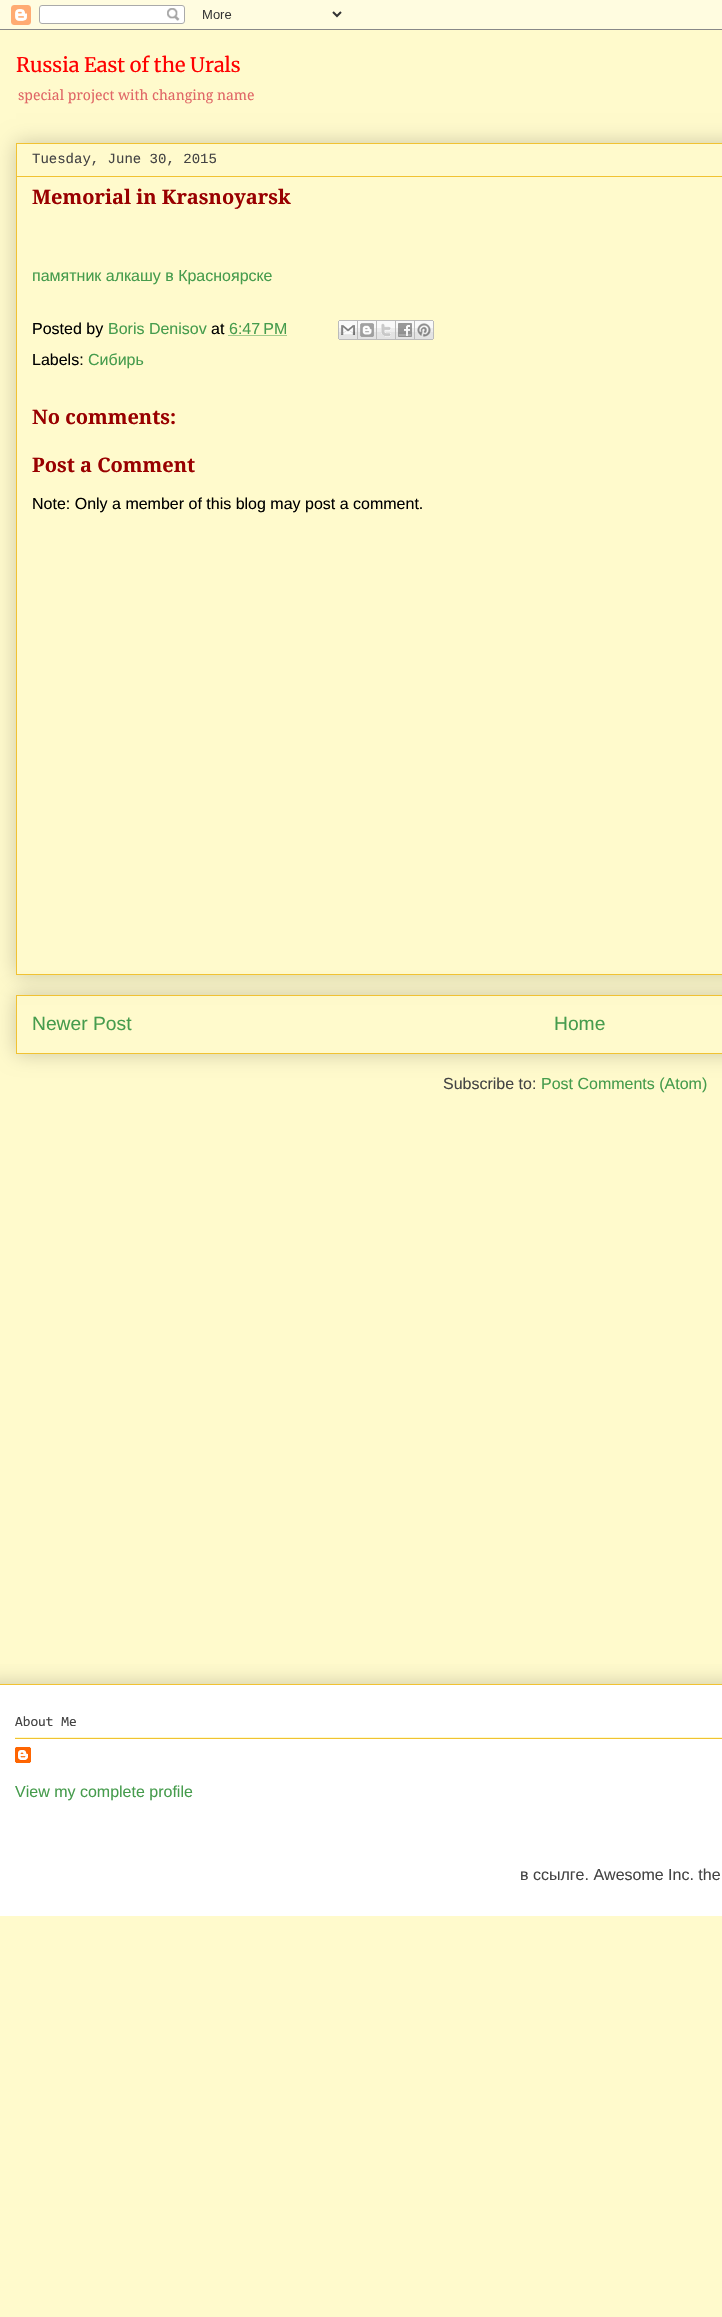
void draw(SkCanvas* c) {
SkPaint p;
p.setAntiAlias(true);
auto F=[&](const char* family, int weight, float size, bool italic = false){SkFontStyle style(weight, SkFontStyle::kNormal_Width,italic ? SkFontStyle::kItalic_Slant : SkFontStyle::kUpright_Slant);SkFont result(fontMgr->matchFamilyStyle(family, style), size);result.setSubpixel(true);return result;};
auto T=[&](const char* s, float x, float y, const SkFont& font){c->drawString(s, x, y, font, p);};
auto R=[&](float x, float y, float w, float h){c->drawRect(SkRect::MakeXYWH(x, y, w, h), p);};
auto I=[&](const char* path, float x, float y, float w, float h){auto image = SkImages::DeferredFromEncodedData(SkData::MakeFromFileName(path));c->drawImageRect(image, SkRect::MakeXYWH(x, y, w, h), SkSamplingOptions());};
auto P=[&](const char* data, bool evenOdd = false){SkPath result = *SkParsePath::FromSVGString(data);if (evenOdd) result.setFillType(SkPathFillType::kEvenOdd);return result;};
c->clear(0xfffffacc);
I("1.png",0,0,722,30);
auto f1 = F("Merriweather",300,20);
p.setColor(0xffff0000);
T("Russia East of the Urals",16,72,f1);
auto f2 = F("Droid Serif",400,14);
p.setColor(0xffe06666);
T("special project with changing name",18,100,f2);
c->save();
c->clipPath(P("M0 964h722v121h-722zm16 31h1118v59h-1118z",true),true);
p.setColor(0x33000000);
p.setMaskFilter(SkMaskFilter::MakeBlur(kNormal_SkBlurStyle, 10));
c->drawRect(SkRect::MakeXYWH(16,995,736,59),p);
p.setMaskFilter(nullptr);
c->restore();
p.setStroke(true);
p.setStrokeWidth(1);
p.setColor(0xfff1c232);
c->drawRect(SkRect::MakeXYWH(16.5,995.5,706,58),p);
c->save();
c->clipPath(P("M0 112h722v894h-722zm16 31h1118v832h-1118z",true),true);
p.setStroke(false);
p.setColor(0x33000000);
p.setMaskFilter(SkMaskFilter::MakeBlur(kNormal_SkBlurStyle, 10));
c->drawRect(SkRect::MakeXYWH(16,143,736,832),p);
p.setMaskFilter(nullptr);
c->restore();
p.setStroke(true);
p.setColor(0xfff1c232);
c->drawRect(SkRect::MakeXYWH(16.5,143.5,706,831),p);
auto f3 = F("Liberation Mono",400,14);
p.setStroke(false);
p.setColor(0xff444444);
T("Tuesday, June 30, 2015",32,163,f3);
p.setColor(0xfff1c232);
R(17,176,705,1);
auto f4 = F("Droid Serif",700,20);
p.setColor(0xff990000);
T("Memorial in Krasnoyarsk",32,204,f4);
auto f5 = F("Liberation Sans",400,16);
p.setColor(0xff469c4d);
T("памятник алкашу в Красноярске",32,281,f5);
p.setColor(0xff000000);
T("Posted by",32,334,f5);
p.setColor(0xff469c4d);
T("Boris Denisov",108,334,f5);
p.setColor(0xff000000);
T("at",211,334,f5);
p.setColor(0xff469c4d);
T("6:47 PM",229,334,f5);
p.setStroke(true);
p.setPathEffect(SkDashPathEffect::Make({{1,1}}, 0));
c->drawPath(P("M228.5 335.5h58.5"),p);
p.setPathEffect(nullptr);
I("2.png",338,320,20,20);
I("3.png",358,320,19,20);
I("4.png",377,320,19,20);
I("5.png",396,320,19,20);
I("6.png",415,320,19,20);
p.setStroke(false);
p.setColor(0xff000000);
T("Labels:",32,365,f5);
p.setColor(0xff469c4d);
T("Сибирь",88,365,f5);
p.setColor(0xff990000);
T("No comments:",32,424,f4);
T("Post a Comment",32,472,f4);
p.setColor(0xff000000);
T("Note: Only a member of this blog may post a comment.",32,509,f5);
auto f6 = F("Liberation Sans",400,19.25);
p.setColor(0xff469c4d);
T("Newer Post",32,1030,f6);
T("Home",554,1030,f6);
p.setColor(0xff444444);
T("Subscribe to:",443,1089,f5);
p.setColor(0xff469c4d);
T("Post Comments (Atom)",541,1089,f5);
c->save();
c->clipRect(SkRect::MakeXYWH(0,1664,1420,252));
p.setColor(0x33000000);
p.setMaskFilter(SkMaskFilter::MakeBlur(kNormal_SkBlurStyle, 10));
c->drawRect(SkRect::MakeXYWH(-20,1684,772,232),p);
p.setMaskFilter(nullptr);
c->restore();
p.setColor(0xffffffff);
R(0,1685,722,231);
p.setColor(0xfff1c232);
R(0,1684,722,1);
p.setColor(0xfffffacc);
R(15,1737,707,1);
auto f7 = F("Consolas",400,14);
p.setColor(0xff444444);
T("About Me",15,1726,f7);
p.setColor(0xfff1c232);
R(15,1738,707,1);
I("7.png",15,1747,16,16);
p.setColor(0xff469c4d);
T("View my complete profile",15,1797,f5);
p.setColor(0xff444444);
T("в ссылге. Awesome Inc. the",520,1880,f5);
}
